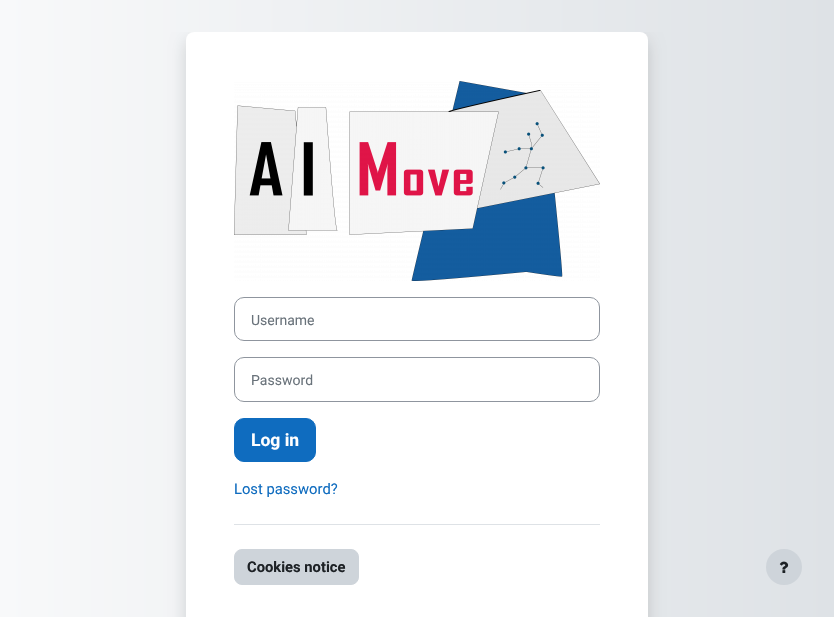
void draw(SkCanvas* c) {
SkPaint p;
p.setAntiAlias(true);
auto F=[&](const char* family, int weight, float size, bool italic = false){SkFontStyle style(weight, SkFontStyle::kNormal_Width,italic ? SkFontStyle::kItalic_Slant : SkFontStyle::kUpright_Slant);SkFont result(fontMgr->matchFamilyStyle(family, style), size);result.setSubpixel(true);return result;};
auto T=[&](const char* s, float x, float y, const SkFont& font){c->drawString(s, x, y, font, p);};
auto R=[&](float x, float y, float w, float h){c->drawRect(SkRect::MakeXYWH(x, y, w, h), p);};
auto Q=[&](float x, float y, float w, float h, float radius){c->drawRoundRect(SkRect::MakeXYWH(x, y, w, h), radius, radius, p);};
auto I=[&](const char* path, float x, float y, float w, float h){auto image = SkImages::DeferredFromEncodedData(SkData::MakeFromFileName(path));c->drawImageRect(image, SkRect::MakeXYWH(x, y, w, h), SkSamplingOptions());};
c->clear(0xffffffff);
{
const SkColor colors[] = {0xfff8f9fa,0xffdee2e6};
const float stops[] = {0,1};
const SkPoint ends[] = {{0,333}, {834,333}};
p.setShader(SkGradientShader::MakeLinear(ends, colors, stops, 2, SkTileMode::kClamp));
p.setAlpha(255);
}
R(0,0,834,617);
c->save();
c->clipRect(SkRect::MakeXYWH(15,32,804,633));
p.setShader(nullptr);
p.setColor(0x26000000);
p.setMaskFilter(SkMaskFilter::MakeBlur(kNormal_SkBlurStyle, 8));
c->drawRoundRect(SkRect::MakeXYWH(186,40,462,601),8,8,p);
p.setMaskFilter(nullptr);
c->restore();
p.setColor(0xffffffff);
Q(186,32,462,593,8);
I("1.png",234,81,366,200);
p.setStroke(true);
p.setStrokeWidth(1);
p.setColor(0xff8f959e);
c->drawRoundRect(SkRect::MakeXYWH(234.5,297.5,365,43),9.5,9.5,p);
auto f1 = F("Roboto",400,14);
p.setStroke(false);
p.setColor(0xff6a737b);
T("Username",251,325,f1);
p.setStroke(true);
p.setColor(0xff8f959e);
c->drawRoundRect(SkRect::MakeXYWH(234.5,357.5,365,44),9.5,9.5,p);
p.setStroke(false);
p.setColor(0xff6a737b);
T("Password",251,385,f1);
p.setColor(0xff0f6cbf);
c->drawRoundRect(SkRect::MakeXYWH(234.5,418.5,81,43),9.5,9.5,p);
p.setStroke(true);
c->drawRoundRect(SkRect::MakeXYWH(234.5,418.5,81,43),9.5,9.5,p);
auto f2 = F("Roboto",700,17.5);
p.setStroke(false);
p.setColor(0xffffffff);
T("Log in",251,446,f2);
auto f3 = F("Roboto",400,14.75);
p.setColor(0xff0f6cbf);
T("Lost password?",234,494,f3);
p.setColor(0xffdee2e6);
R(234,524,366,1);
p.setColor(0xffced4da);
c->drawRoundRect(SkRect::MakeXYWH(234.5,549.5,124,35),7.5,7.5,p);
p.setStroke(true);
c->drawRoundRect(SkRect::MakeXYWH(234.5,549.5,124,35),7.5,7.5,p);
auto f4 = F("Roboto",700,14.75);
p.setStroke(false);
p.setColor(0xff1d2125);
T("Cookies notice",247,572,f4);
p.setColor(0xffced4da);
c->drawCircle(784,567,18,p);
I("2.png",779,561,10,12);
}
